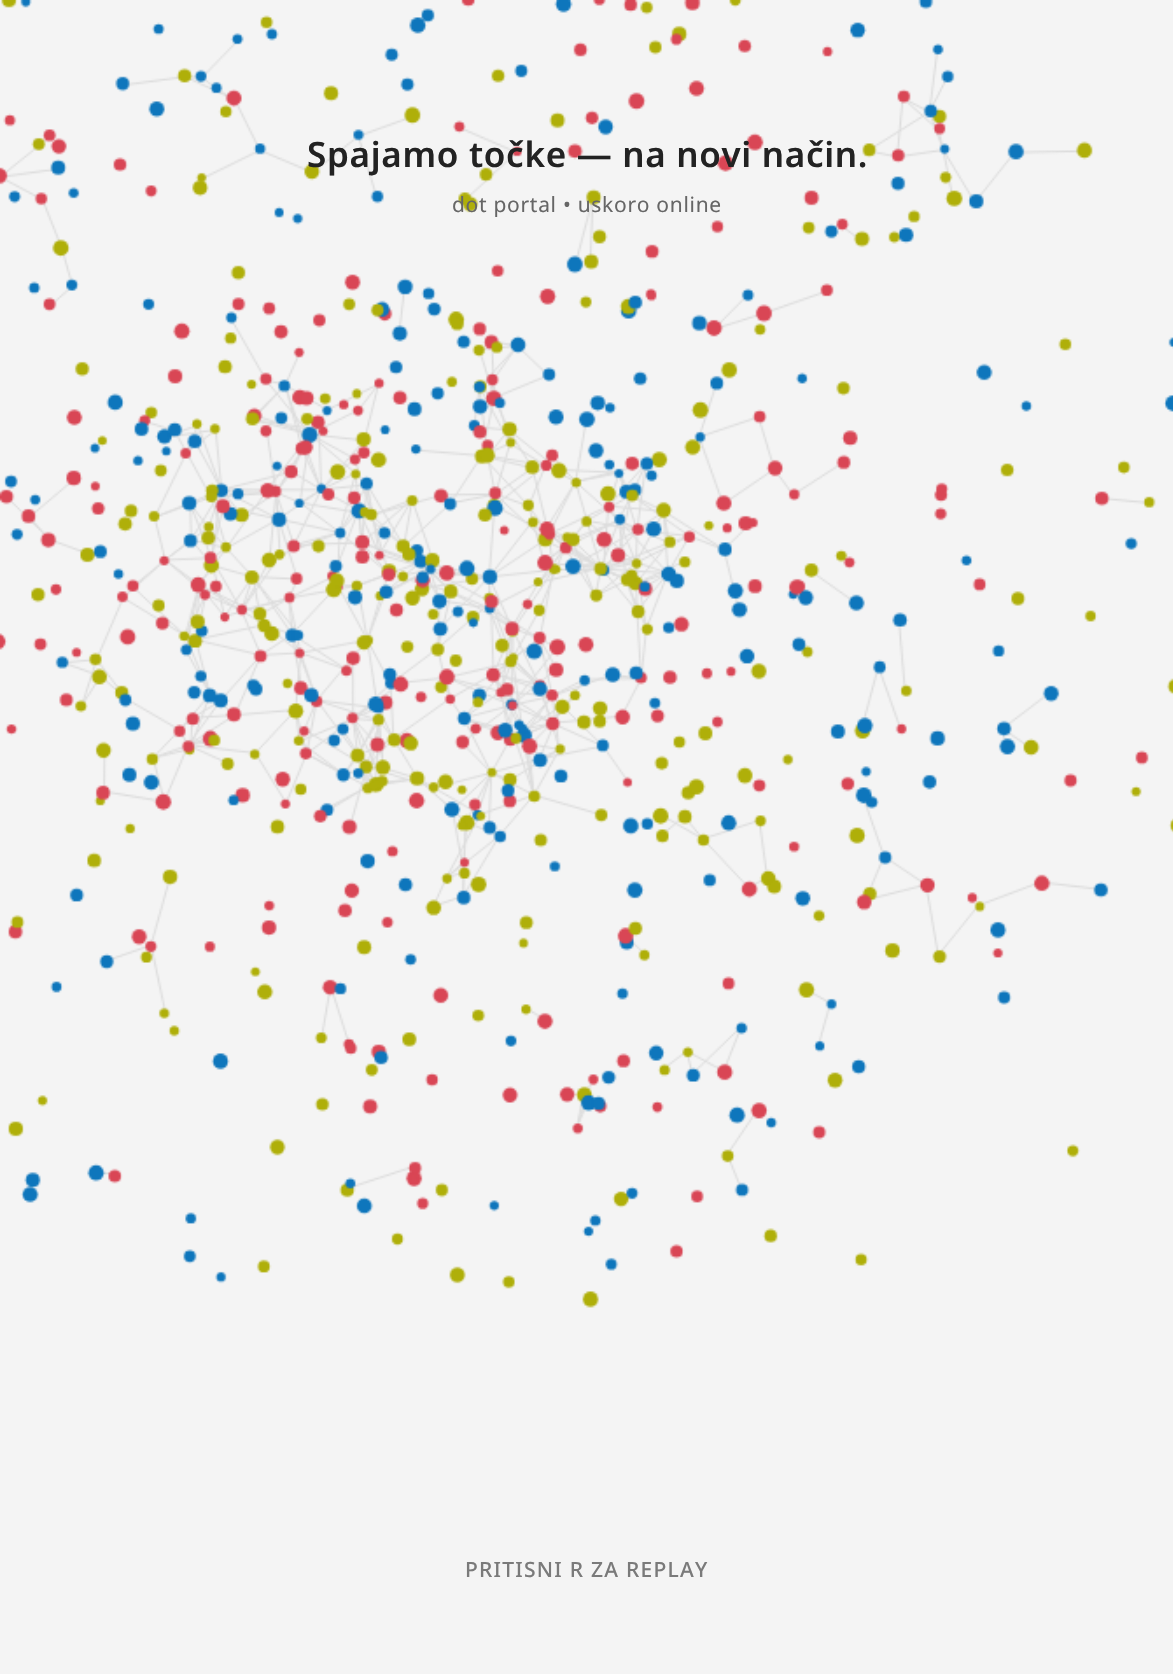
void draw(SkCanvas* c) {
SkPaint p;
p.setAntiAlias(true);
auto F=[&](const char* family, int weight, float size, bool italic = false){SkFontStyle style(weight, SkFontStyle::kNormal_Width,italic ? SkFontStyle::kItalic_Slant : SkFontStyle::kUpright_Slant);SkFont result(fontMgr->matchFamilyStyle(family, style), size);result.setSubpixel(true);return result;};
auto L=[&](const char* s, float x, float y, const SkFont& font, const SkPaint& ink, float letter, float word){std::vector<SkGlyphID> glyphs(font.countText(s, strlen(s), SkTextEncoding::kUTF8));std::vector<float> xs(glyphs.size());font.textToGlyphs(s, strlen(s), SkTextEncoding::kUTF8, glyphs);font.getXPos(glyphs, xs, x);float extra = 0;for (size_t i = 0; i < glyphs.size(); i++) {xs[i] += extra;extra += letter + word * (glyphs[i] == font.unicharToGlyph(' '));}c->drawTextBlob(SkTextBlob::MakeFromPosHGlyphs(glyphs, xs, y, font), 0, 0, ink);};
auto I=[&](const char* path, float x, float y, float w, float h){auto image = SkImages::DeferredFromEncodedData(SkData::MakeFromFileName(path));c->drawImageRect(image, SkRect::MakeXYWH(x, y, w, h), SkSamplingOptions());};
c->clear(0xfff4f4f4);
I("1.png",0,0,1173,1308);
auto f1 = F("Noto Sans",600,35);
p.setColor(0xff222222);
L("Spajamo točke — na novi način.",307,167,f1,p,.7,0);
auto f2 = F("Noto Sans",400,21);
p.setColor(0xff666666);
L("dot portal • uskoro online",452,212,f2,p,.7,0);
auto f3 = F("Noto Sans",500,21);
p.setColor(0xff7a7a7a);
L("PRITISNI R ZA REPLAY",465,1577,f3,p,1.25,0);
}
